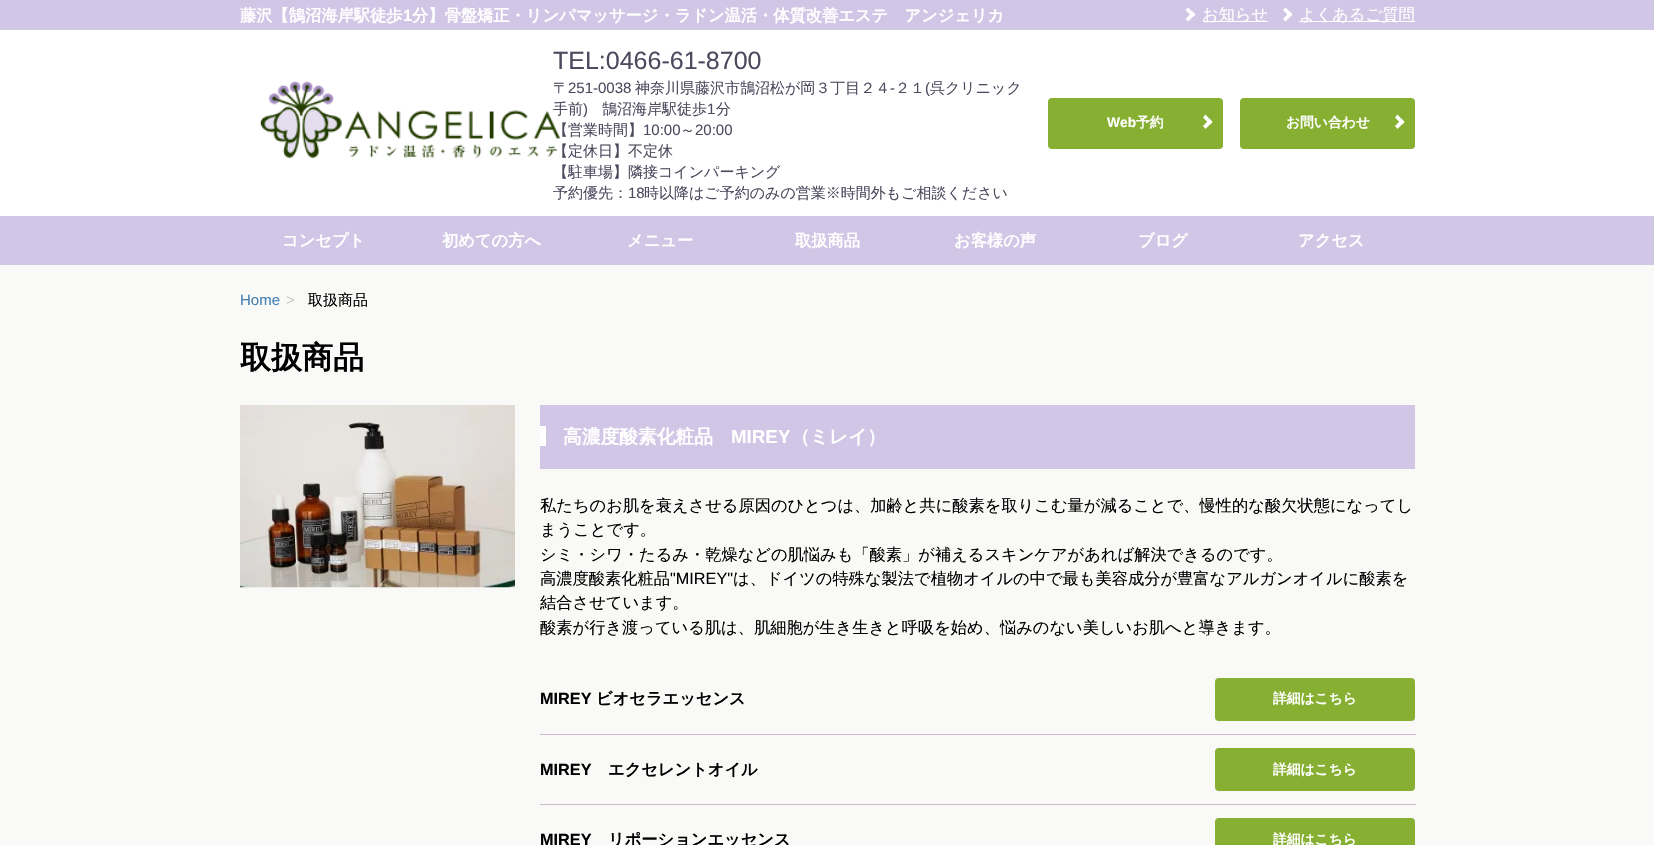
void draw(SkCanvas* c) {
SkPaint p;
p.setAntiAlias(true);
auto F=[&](const char* family, int weight, float size, bool italic = false){SkFontStyle style(weight, SkFontStyle::kNormal_Width,italic ? SkFontStyle::kItalic_Slant : SkFontStyle::kUpright_Slant);SkFont result(fontMgr->matchFamilyStyle(family, style), size);result.setSubpixel(true);return result;};
auto T=[&](const char* s, float x, float y, const SkFont& font){c->drawString(s, x, y, font, p);};
auto R=[&](float x, float y, float w, float h){c->drawRect(SkRect::MakeXYWH(x, y, w, h), p);};
auto Q=[&](float x, float y, float w, float h, float radius){c->drawRoundRect(SkRect::MakeXYWH(x, y, w, h), radius, radius, p);};
auto I=[&](const char* path, float x, float y, float w, float h){auto image = SkImages::DeferredFromEncodedData(SkData::MakeFromFileName(path));c->drawImageRect(image, SkRect::MakeXYWH(x, y, w, h), SkSamplingOptions());};
auto P=[&](const char* data, bool evenOdd = false){SkPath result = *SkParsePath::FromSVGString(data);if (evenOdd) result.setFillType(SkPathFillType::kEvenOdd);return result;};
c->clear(0xfff9f9f7);
p.setColor(0xffd1c6e5);
R(0,0,1654,30);
auto f1 = F("WenQuanYi Zen Hei",700,16.25);
p.setColor(0xffffffff);
T("藤沢【鵠沼海岸駅徒歩",240,21,f1);
auto f2 = F("Liberation Sans",700,16.25);
T("1",403,21,f2);
T("分】骨盤矯正・リンパマッサージ・ラドン温活・体質改善エステ　アンジェリカ",412,21,f1);
c->drawPath(P("M1188 7.5l7.5 7l-3 2.5l-7-7z"),p);
c->drawPath(P("M1192.5 11.5l3 3l-7.5 7l-2.5-2.5z"),p);
R(1203,21,65,1);
auto f3 = F("WenQuanYi Zen Hei",500,16.25);
T("お知らせ",1202,20,f3);
c->drawPath(P("M1285.5 7.5l7 7l-2.5 2.5l-7-7z"),p);
c->drawPath(P("M1290 11.5l2.5 3l-7 7l-2.5-2.5z"),p);
R(1299,21,116,1);
T("よくあるご質問",1299,20,f3);
R(0,30,1654,186);
I("1.png",260,81,301,78);
auto f4 = F("Liberation Sans",400,25);
p.setColor(0xff4d4a5e);
T("TEL:0466-61-8700",553,69,f4);
auto f5 = F("WenQuanYi Zen Hei",500,15);
T("〒",553,93,f5);
auto f6 = F("Liberation Sans",400,15);
T("251-0038",568,93,f6);
T("神奈川県藤沢市鵠沼松が岡３丁目２４",635,93,f5);
T("-",890,93,f6);
T("２１",895,93,f5);
T("(",925,93,f6);
T("呉クリニック",930,93,f5);
T("手前",553,114,f5);
T(")",583,114,f6);
T("鵠沼海岸駅徒歩",602,114,f5);
T("1",707,114,f6);
T("分",716,114,f5);
T("【営業時間】",553,135,f5);
T("10:00",643,135,f6);
T("～",680,135,f5);
T("20:00",695,135,f6);
T("【定休日】不定休",553,156,f5);
T("【駐車場】隣接コインパーキング",553,177,f5);
T("予約優先：",553,198,f5);
T("18",628,198,f6);
T("時以降はご予約のみの営業※時間外もご相談ください",644,198,f5);
p.setColor(0xff87b032);
Q(1048,98,175,51,4);
auto f7 = F("Liberation Sans",700,13.75);
p.setColor(0xffffffff);
T("Web",1107,127,f7);
auto f8 = F("WenQuanYi Zen Hei",700,13.75);
T("予約",1136,127,f8);
c->drawPath(P("M1205.5 114.5l7 7.5l-2.5 2.5l-7-7z"),p);
c->drawPath(P("M1210 119l2.5 3l-7 7l-2.5-3z"),p);
p.setColor(0xff87b032);
Q(1240,98,175,51,4);
p.setColor(0xffffffff);
T("お問い合わせ",1286,127,f8);
c->drawPath(P("M1397.5 114.5l7 7.5l-2.5 2.5l-7-7z"),p);
c->drawPath(P("M1402 119l2.5 3l-7 7l-2.5-3z"),p);
p.setColor(0xffd1c6e5);
R(0,216,1654,49);
p.setColor(0xffffffff);
T("コンセプト",282,246,f1);
T("初めての方へ",442,246,f1);
T("メニュー",627,246,f1);
T("取扱商品",795,246,f1);
T("お客様の声",954,246,f1);
T("ブログ",1138,246,f1);
T("アクセス",1298,246,f1);
p.setColor(0xff4682b4);
T("Home",240,305,f6);
p.setColor(0xffcccccc);
T(">",286,305,f6);
p.setColor(0xff000000);
T("取扱商品",308,305,f5);
auto f9 = F("WenQuanYi Zen Hei",700,31);
T("取扱商品",240,368,f9);
I("2.png",240,405,275,183);
p.setColor(0xffd1c6e5);
R(540,405,875,64);
p.setColor(0xffffffff);
R(540,426,6,20);
auto f10 = F("WenQuanYi Zen Hei",700,18.75);
T("高濃度酸素化粧品",563,443,f10);
auto f11 = F("Liberation Sans",700,18.75);
T("MIREY",731,443,f11);
T("（ミレイ）",791,443,f10);
p.setColor(0xff000000);
T("私たちのお肌を衰えさせる原因のひとつは、加齢と共に酸素を取りこむ量が減ることで、慢性的な酸欠状態になってし",540,511,f3);
T("まうことです。",540,535,f3);
T("シミ・シワ・たるみ・乾燥などの肌悩みも「酸素」が補えるスキンケアがあれば解決できるのです。",540,560,f3);
T("高濃度酸素化粧品",540,584,f3);
auto f12 = F("Liberation Sans",400,16.25);
T("\"MIREY\"",670,584,f12);
T("は、ドイツの特殊な製法で植物オイルの中で最も美容成分が豊富なアルガンオイルに酸素を",733,584,f3);
T("結合させています。",540,608,f3);
T("酸素が行き渡っている肌は、肌細胞が生き生きと呼吸を始め、悩みのない美しいお肌へと導きます。",540,633,f3);
T("MIREY",540,704,f2);
T("ビオセラエッセンス",596,704,f1);
p.setColor(0xffccbbcc);
R(540,734,876,1);
p.setColor(0xff87b032);
Q(1215,678,200,43,4);
p.setColor(0xffffffff);
T("詳細はこちら",1273,703,f8);
p.setColor(0xff000000);
T("MIREY",540,775,f2);
T("エクセレントオイル",608,775,f1);
p.setColor(0xffccbbcc);
R(540,804,876,1);
p.setColor(0xff87b032);
Q(1215,748,200,43,4);
p.setColor(0xffffffff);
T("詳細はこちら",1273,774,f8);
p.setColor(0xff000000);
T("MIREY",540,845,f2);
T("リポーションエッセンス",608,845,f1);
p.setColor(0xff87b032);
Q(1215,818,200,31,4);
p.setColor(0xffffffff);
T("詳細はこちら",1273,844,f8);
}
